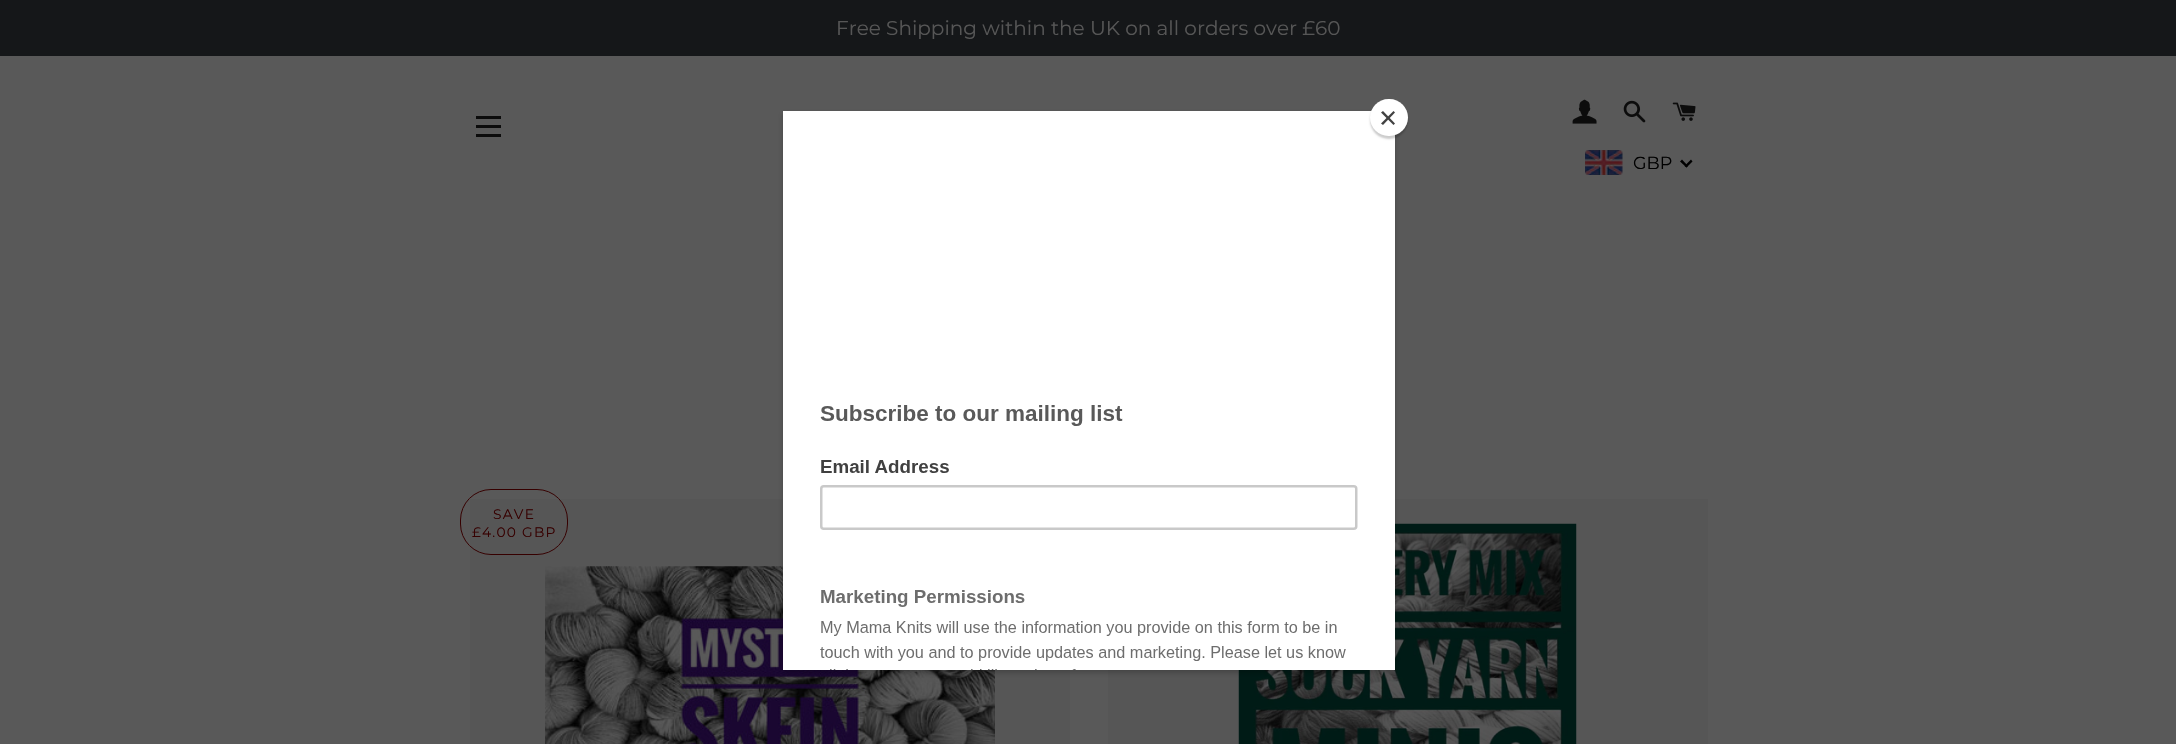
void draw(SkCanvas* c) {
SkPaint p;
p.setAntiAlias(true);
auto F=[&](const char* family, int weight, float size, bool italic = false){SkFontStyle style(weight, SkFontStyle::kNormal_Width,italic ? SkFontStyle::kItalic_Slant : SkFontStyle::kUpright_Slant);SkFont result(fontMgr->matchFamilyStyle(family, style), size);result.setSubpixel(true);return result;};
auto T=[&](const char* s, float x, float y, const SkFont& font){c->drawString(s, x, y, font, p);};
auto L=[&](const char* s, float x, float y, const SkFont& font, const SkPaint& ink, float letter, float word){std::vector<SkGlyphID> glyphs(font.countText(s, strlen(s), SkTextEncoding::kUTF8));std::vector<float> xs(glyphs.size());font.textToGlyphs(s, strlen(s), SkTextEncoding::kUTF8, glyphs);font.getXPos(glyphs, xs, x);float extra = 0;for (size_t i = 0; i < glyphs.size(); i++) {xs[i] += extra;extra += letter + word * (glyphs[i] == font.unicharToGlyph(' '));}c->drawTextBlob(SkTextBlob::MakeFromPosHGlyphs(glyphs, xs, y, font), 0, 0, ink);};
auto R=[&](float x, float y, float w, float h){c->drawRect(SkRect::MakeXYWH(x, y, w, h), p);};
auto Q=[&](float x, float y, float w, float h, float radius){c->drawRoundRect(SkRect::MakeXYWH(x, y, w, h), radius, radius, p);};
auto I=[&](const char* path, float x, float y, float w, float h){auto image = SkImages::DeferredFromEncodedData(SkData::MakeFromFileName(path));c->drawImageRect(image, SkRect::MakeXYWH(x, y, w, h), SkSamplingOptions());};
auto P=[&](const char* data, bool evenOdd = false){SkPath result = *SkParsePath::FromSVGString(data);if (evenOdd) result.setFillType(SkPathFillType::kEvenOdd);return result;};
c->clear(0xff595959);
p.setColor(0xff151719);
R(0,0,2176,56);
auto f1 = F("Montserrat",100,20);
p.setColor(0xff565656);
T("Free Shipping within the UK on all orders over £60",836,35,f1);
p.setColor(0xff0c0c0c);
R(476,116,25,3);
R(476,125,25,3);
R(476,134,25,3);
I("1.png",1572,99,25,25);
I("2.png",1623,100,23,23);
I("3.png",1672,102,24,19);
I("4.png",1585,150,38,25);
auto f2 = F("Montserrat",100,17.5);
p.setColor(0xff000000);
T("GBP",1633,169,f2);
c->drawPath(P("M1691 159.5l1.5 2l-6 6l-2-1.5z"),p);
c->drawPath(P("M1682 159.5l6 6.5l-1.5 1.5l-6.5-6z"),p);
p.setColor(0xff565656);
R(470,499,600,245);
I("5.png",545,566,450,178);
p.setStroke(true);
p.setStrokeWidth(1);
p.setColor(0xff360000);
c->drawRoundRect(SkRect::MakeXYWH(460.5,489.5,107,65),30.5,30.5,p);
auto f3 = F("Montserrat",100,13.75);
p.setStroke(false);
L("SAVE",493,519,f3,p,1.25,0);
L("£4.00 GBP",472,537,f3,p,1.25,0);
p.setColor(0xff565656);
R(1108,499,600,245);
I("6.png",1238,523,339,221);
p.setColor(0x33000000);
p.setMaskFilter(SkMaskFilter::MakeBlur(kNormal_SkBlurStyle, 2.5));
c->drawRect(SkRect::MakeXYWH(783,114,612,559),p);
p.setMaskFilter(nullptr);
I("7.png",783,111,612,559);
p.setMaskFilter(SkMaskFilter::MakeBlur(kNormal_SkBlurStyle, 1));
c->drawRoundRect(SkRect::MakeXYWH(1370,101,38,38),19,19,p);
p.setMaskFilter(nullptr);
p.setColor(0xffffffff);
Q(1370,99,38,37,18.5);
p.setColor(0xff414141);
c->drawPath(P("M1393.5 111l1.5 1.5l-12 12.5l-2-1.5z"),p);
c->drawPath(P("M1381 112.5l2-1.5l12 12.5l-1.5 1.5z"),p);
}
